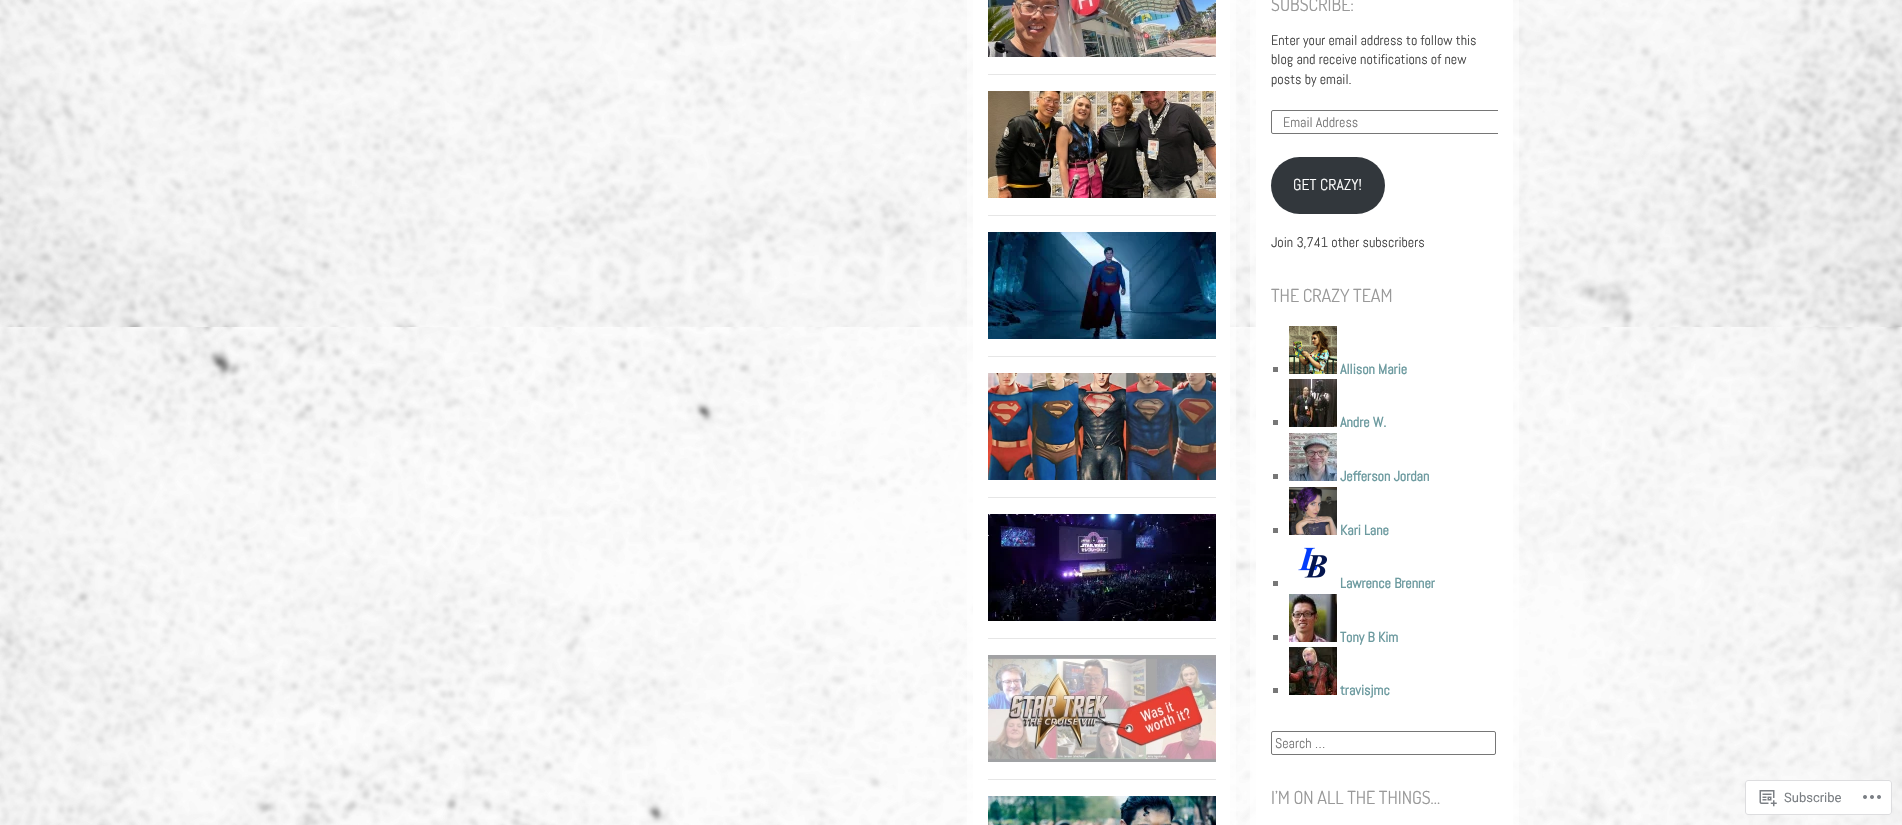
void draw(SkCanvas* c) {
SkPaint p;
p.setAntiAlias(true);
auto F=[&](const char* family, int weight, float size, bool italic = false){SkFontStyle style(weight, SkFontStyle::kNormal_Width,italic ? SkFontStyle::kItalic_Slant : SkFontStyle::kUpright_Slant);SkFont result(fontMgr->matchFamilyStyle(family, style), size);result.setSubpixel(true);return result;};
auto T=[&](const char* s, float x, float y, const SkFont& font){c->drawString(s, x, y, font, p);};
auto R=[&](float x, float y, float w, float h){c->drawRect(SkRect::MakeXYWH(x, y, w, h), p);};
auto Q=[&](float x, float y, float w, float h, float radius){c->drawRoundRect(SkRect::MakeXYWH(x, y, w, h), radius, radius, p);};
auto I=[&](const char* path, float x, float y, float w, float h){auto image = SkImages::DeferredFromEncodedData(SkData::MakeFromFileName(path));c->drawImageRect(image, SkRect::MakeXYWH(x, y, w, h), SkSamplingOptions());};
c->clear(0xffffffff);
I("1.png",0,0,1902,825);
p.setColor(0xffffffff);
R(973,0,257,825);
p.setStroke(true);
p.setStrokeWidth(6);
p.setColor(0x80ffffff);
c->drawRect(SkRect::MakeXYWH(970,-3,263,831),p);
p.setStroke(false);
p.setColor(0xffe6e6e6);
R(988,74,228,1);
I("2.png",988,0,228,57);
R(988,215,228,1);
I("3.png",988,91,228,107);
R(988,356,228,1);
I("4.png",988,232,228,107);
R(988,497,228,1);
I("5.png",988,373,228,107);
R(988,638,228,1);
I("6.png",988,514,228,107);
R(988,779,228,1);
I("7.png",988,655,228,107);
I("8.png",988,796,228,29);
p.setColor(0xffffffff);
R(1256,0,257,825);
p.setStroke(true);
p.setColor(0x80ffffff);
c->drawRect(SkRect::MakeXYWH(1253,-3,263,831),p);
auto f1 = F("Dosis",400,18);
p.setStroke(false);
p.setColor(0xff999999);
T("SUBSCRIBE:",1271,11,f1);
auto f2 = F("Abel",400,14);
p.setColor(0xff404040);
T("Enter your email address to follow this",1271,45,f2);
T("blog and receive notifications of new",1271,64,f2);
T("posts by email.",1271,84,f2);
c->save();
c->clipRect(SkRect::MakeXYWH(1271,0,227,283));
p.setStroke(true);
p.setStrokeWidth(1);
p.setColor(0xff767676);
c->drawRoundRect(SkRect::MakeXYWH(1271.5,110.5,238,23),1.5,1.5,p);
c->restore();
p.setStroke(false);
p.setColor(0xff757575);
T("Email Address",1283,127,f2);
p.setColor(0xff32373c);
Q(1271,157,114,57,28.5);
auto f3 = F("Abel",400,15.75);
p.setColor(0xffffffff);
T("GET CRAZY!",1293,190,f3);
p.setColor(0xff404040);
T("Join 3,741 other subscribers",1271,247,f2);
p.setColor(0xff999999);
T("THE CRAZY TEAM",1271,302,f1);
p.setColor(0xff777777);
R(1273,367,5,5);
I("9.png",1289,326,48,48);
auto f4 = F("Abel",700,14);
p.setColor(0xff6c9a9f);
T("Allison Marie",1340,374,f4);
p.setColor(0xff777777);
R(1273,420,5,5);
I("10.png",1289,379,48,48);
p.setColor(0xff6c9a9f);
T("Andre W.",1340,427,f4);
p.setColor(0xff777777);
R(1273,474,5,5);
I("11.png",1289,433,48,48);
p.setColor(0xff6c9a9f);
T("Jefferson Jordan",1340,481,f4);
p.setColor(0xff777777);
R(1273,528,5,5);
I("12.png",1289,487,48,48);
p.setColor(0xff6c9a9f);
T("Kari Lane",1340,535,f4);
I("13.png",1298,547,29,31);
p.setColor(0xff777777);
R(1273,581,5,5);
p.setColor(0xff6c9a9f);
T("Lawrence Brenner",1340,588,f4);
p.setColor(0xff777777);
R(1273,635,5,5);
I("14.png",1289,594,48,48);
p.setColor(0xff6c9a9f);
T("Tony B Kim",1340,642,f4);
p.setColor(0xff777777);
R(1273,688,5,5);
I("15.png",1289,647,48,48);
p.setColor(0xff6c9a9f);
T("travisjmc",1340,695,f4);
p.setStroke(true);
p.setColor(0xff767676);
c->drawRoundRect(SkRect::MakeXYWH(1271.5,731.5,224,23),1.5,1.5,p);
p.setStroke(false);
p.setColor(0xff757575);
T("Search …",1275,748,f2);
p.setColor(0xff999999);
T("I’M ON ALL THE THINGS…",1271,804,f1);
p.setColor(0xfaffffff);
Q(1745,780,147,35,3);
p.setStroke(true);
p.setColor(0xfadcdcde);
c->drawRoundRect(SkRect::MakeXYWH(1745.5,780.5,146,34),2.5,2.5,p);
I("16.png",1759,790,18,17);
auto f5 = F("Roboto",400,13);
p.setStroke(false);
p.setColor(0xff7b7f84);
T("Subscribe",1784,802,f5);
I("17.png",1863,795,18,4);
}
